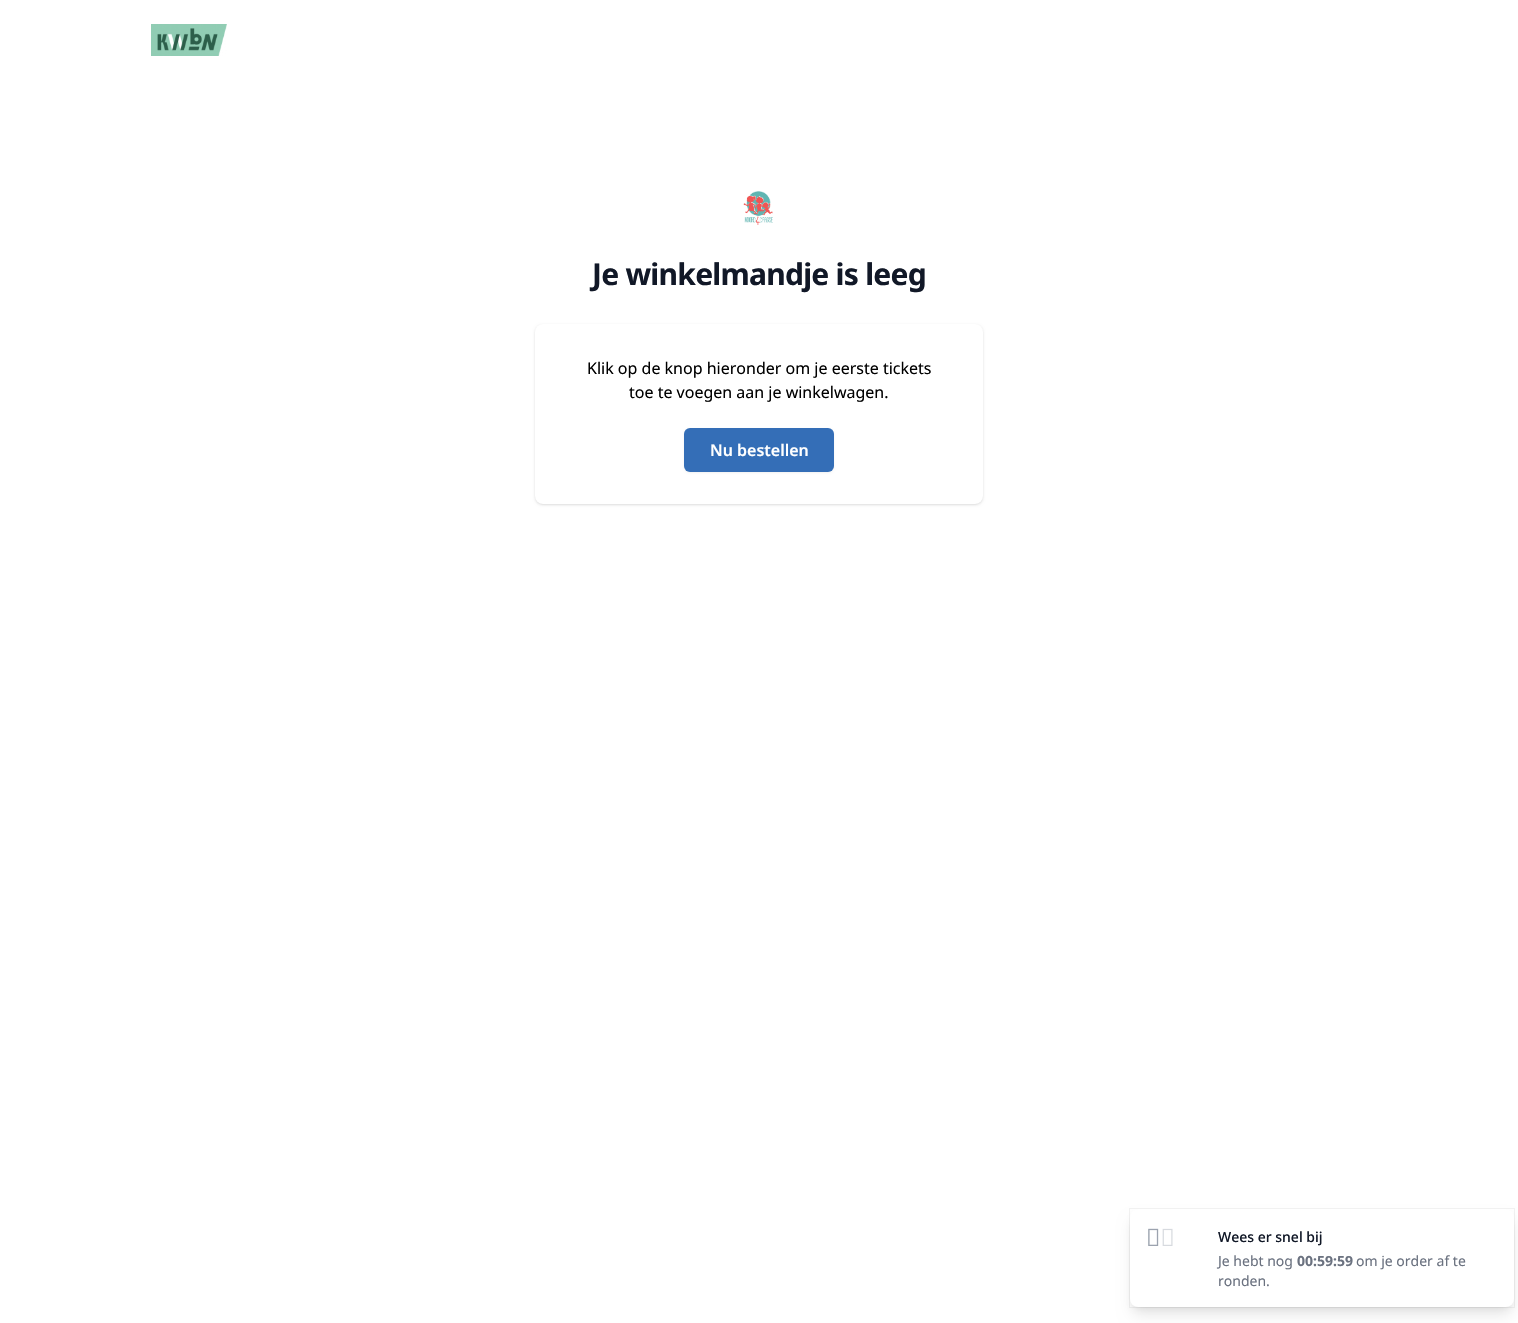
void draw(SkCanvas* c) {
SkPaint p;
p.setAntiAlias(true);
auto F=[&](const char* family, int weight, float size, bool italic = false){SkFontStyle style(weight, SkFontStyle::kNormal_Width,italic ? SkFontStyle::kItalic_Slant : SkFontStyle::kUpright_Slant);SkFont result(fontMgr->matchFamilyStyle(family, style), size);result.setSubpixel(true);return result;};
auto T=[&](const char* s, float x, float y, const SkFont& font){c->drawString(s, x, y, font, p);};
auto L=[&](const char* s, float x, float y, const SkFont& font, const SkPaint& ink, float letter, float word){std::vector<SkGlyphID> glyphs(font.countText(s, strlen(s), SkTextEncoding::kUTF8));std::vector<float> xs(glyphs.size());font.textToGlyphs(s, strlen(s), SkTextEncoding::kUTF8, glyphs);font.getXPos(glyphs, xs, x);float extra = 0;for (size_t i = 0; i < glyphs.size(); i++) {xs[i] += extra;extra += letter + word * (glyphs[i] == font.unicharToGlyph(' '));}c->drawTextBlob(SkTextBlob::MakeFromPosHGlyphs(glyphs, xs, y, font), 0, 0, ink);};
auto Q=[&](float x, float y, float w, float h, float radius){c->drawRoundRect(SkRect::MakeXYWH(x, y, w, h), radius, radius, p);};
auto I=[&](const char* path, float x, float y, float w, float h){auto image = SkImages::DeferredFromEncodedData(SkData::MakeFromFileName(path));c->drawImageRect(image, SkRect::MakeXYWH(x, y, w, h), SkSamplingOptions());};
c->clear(0xffffffff);
I("1.png",151,24,76,32);
I("2.png",743,191,30,34);
auto f1 = F("Noto Sans",700,30);
p.setColor(0xff111827);
L("Je winkelmandje is leeg",592,285,f1,p,-.75,0);
p.setColor(0x1a000000);
p.setMaskFilter(SkMaskFilter::MakeBlur(kNormal_SkBlurStyle, 1));
c->drawRoundRect(SkRect::MakeXYWH(536,326,446,178),7,7,p);
p.setMaskFilter(nullptr);
p.setMaskFilter(SkMaskFilter::MakeBlur(kNormal_SkBlurStyle, 1.5));
c->drawRoundRect(SkRect::MakeXYWH(535,325,448,180),8,8,p);
p.setMaskFilter(nullptr);
p.setColor(0xffffffff);
Q(535,324,448,180,8);
auto f2 = F("Noto Sans",400,16);
p.setColor(0xff000000);
T("Klik op de knop hieronder om je eerste tickets",587,374,f2);
T("toe te voegen aan je winkelwagen.",629,398,f2);
p.setColor(0x0d000000);
p.setMaskFilter(SkMaskFilter::MakeBlur(kNormal_SkBlurStyle, 1));
c->drawRoundRect(SkRect::MakeXYWH(684,429,150,44),6,6,p);
p.setMaskFilter(nullptr);
p.setColor(0xff346eb7);
Q(684,428,150,44,6);
auto f3 = F("Noto Sans",600,16);
p.setColor(0xffffffff);
T("Nu bestellen",710,456,f3);
p.setColor(0x1a000000);
p.setMaskFilter(SkMaskFilter::MakeBlur(kNormal_SkBlurStyle, 3));
c->drawRoundRect(SkRect::MakeXYWH(1134,1217,376,90),4,4,p);
p.setMaskFilter(nullptr);
p.setMaskFilter(SkMaskFilter::MakeBlur(kNormal_SkBlurStyle, 7.5));
c->drawRoundRect(SkRect::MakeXYWH(1133,1222,378,92),5,5,p);
p.setMaskFilter(nullptr);
p.setStroke(true);
p.setStrokeWidth(1);
p.setColor(0x0d000000);
c->drawRect(SkRect::MakeXYWH(1129.5,1208.5,385,99),p);
p.setStroke(false);
p.setColor(0xffffffff);
Q(1130,1209,384,98,8);
I("3.png",1148,1228,11,18);
I("4.png",1148,1228,25,18);
auto f4 = F("Noto Sans",500,14);
p.setColor(0xff111827);
T("Wees er snel bij",1218,1242,f4);
auto f5 = F("Noto Sans",400,14);
p.setColor(0xff6b7280);
T("Je hebt nog",1218,1266,f5);
auto f6 = F("Noto Sans",700,14);
T("00:59:59",1297,1266,f6);
T("om je order af te",1356,1266,f5);
T("ronden.",1218,1286,f5);
}
